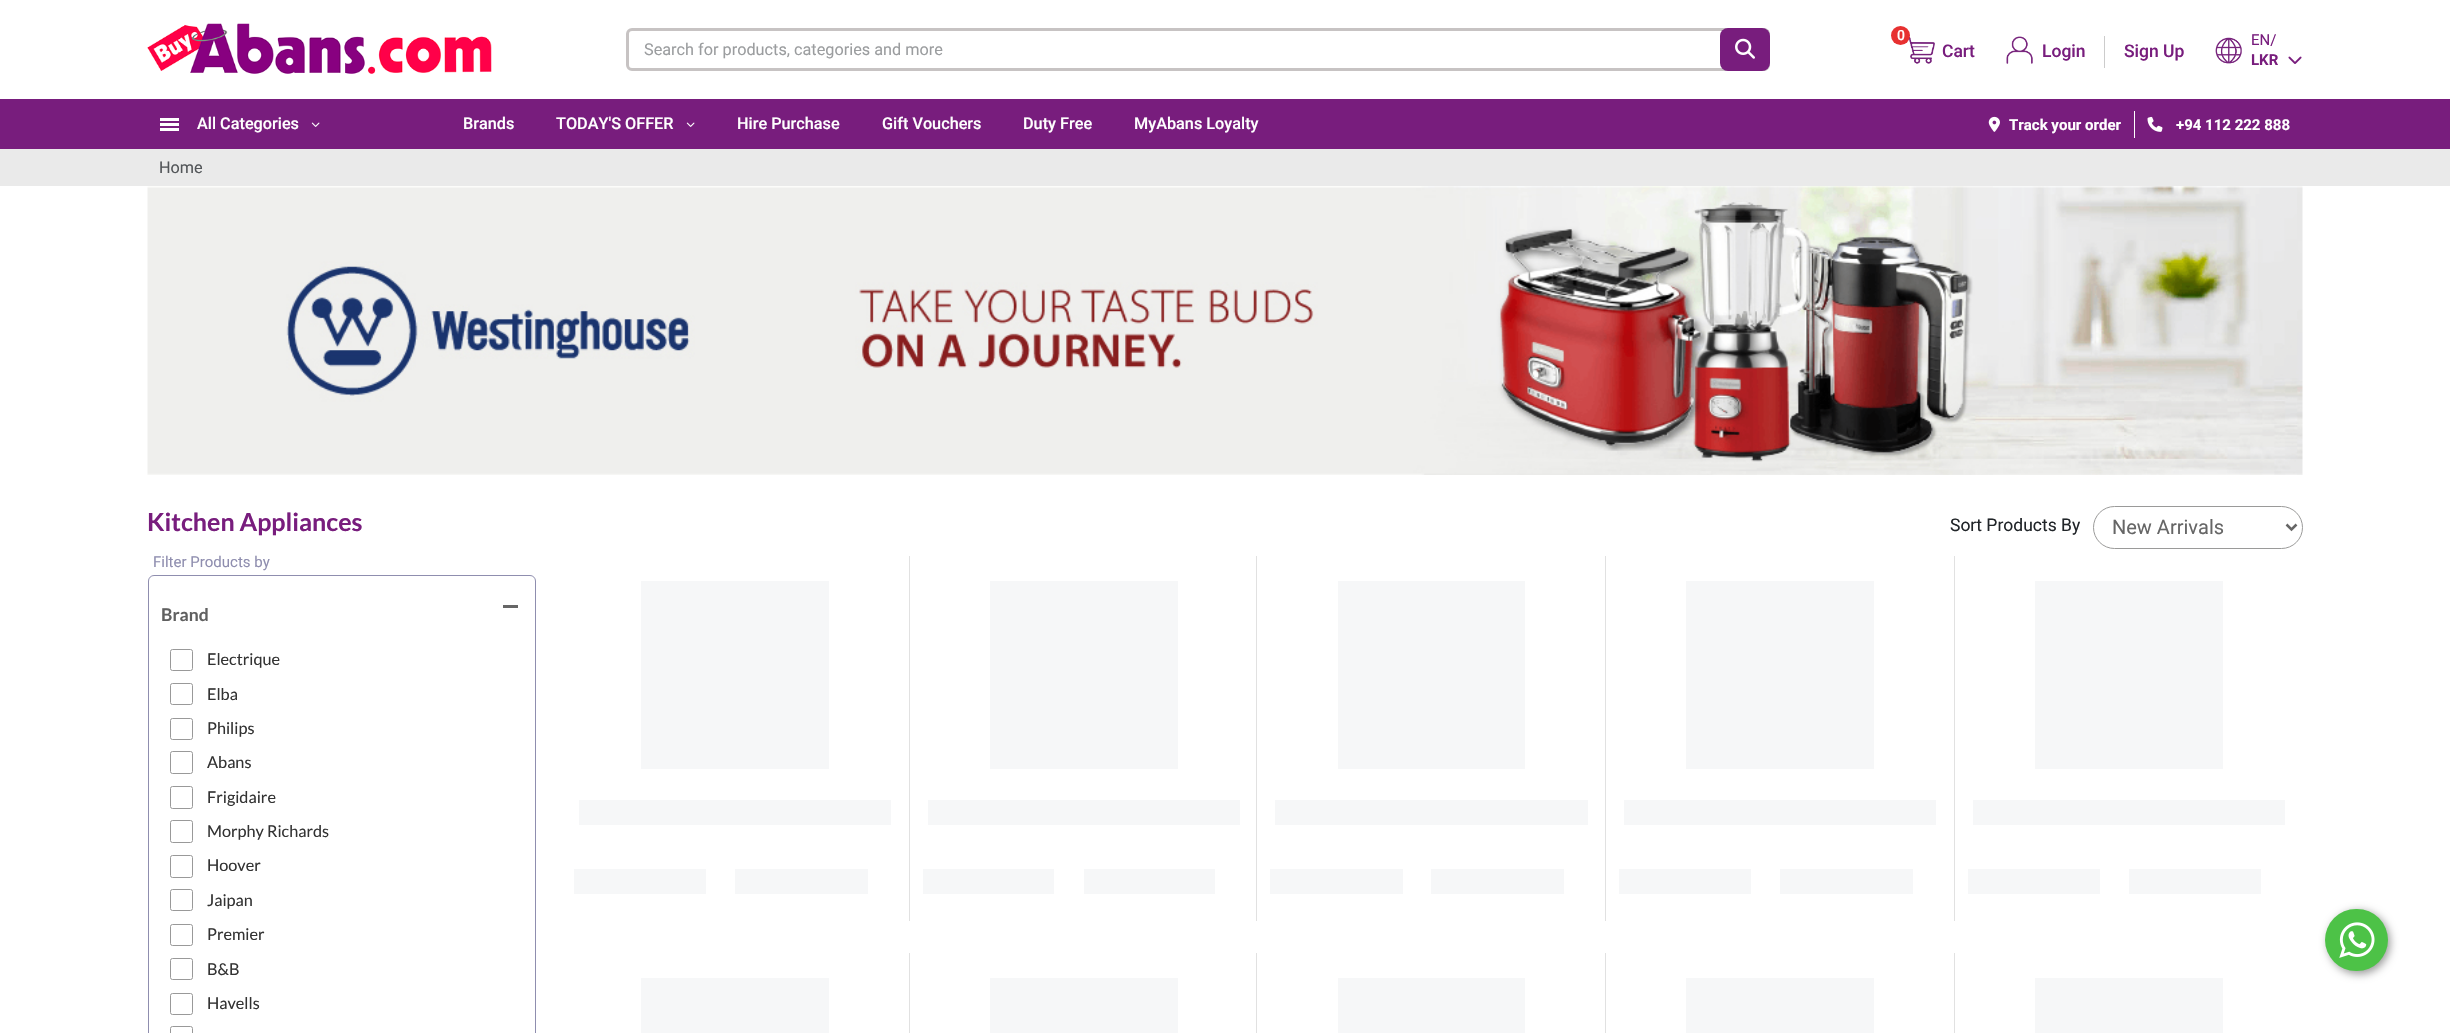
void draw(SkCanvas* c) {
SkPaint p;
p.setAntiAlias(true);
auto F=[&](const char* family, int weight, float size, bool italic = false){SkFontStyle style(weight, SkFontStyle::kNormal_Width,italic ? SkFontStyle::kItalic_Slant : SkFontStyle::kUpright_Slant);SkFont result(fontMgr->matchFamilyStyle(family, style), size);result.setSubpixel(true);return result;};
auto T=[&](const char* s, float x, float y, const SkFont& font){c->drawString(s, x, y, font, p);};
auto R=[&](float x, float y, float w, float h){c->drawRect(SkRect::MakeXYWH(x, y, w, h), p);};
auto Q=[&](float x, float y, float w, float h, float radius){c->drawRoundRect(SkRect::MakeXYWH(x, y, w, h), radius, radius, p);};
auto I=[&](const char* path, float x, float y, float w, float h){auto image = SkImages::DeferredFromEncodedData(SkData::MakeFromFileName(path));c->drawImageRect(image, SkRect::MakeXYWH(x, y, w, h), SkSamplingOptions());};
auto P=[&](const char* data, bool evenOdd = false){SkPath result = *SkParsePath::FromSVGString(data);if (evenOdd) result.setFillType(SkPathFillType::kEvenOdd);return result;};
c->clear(0xffffffff);
I("1.png",147,23,345,51);
p.setStroke(true);
p.setStrokeWidth(3);
p.setColor(0xffc7c3c3);
c->drawRoundRect(SkRect::MakeXYWH(627.5,29.5,1141,40),4.5,4.5,p);
auto f1 = F("Roboto",400,16.25);
p.setStroke(false);
p.setColor(0xff9b9d9f);
T("Search for products, categories and more",644,55,f1);
p.setColor(0xff781d7d);
Q(1720,28,50,43,8);
I("2.png",1735,38,20,21);
I("3.png",1908,36,27,28);
p.setColor(0xffe73030);
c->drawCircle(1900.5,35.5,9.5,p);
auto f2 = F("Roboto",500,14);
p.setColor(0xffffffff);
T("0",1897,40,f2);
auto f3 = F("Roboto",500,17.5);
p.setColor(0xff781d7d);
T("Cart",1942,57,f3);
I("4.png",2006,36,27,28);
T("Login",2042,57,f3);
p.setColor(0xffcccccc);
R(2104,36,1,32);
p.setColor(0xff781d7d);
T("Sign Up",2124,57,f3);
I("5.png",2215,37,27,27);
auto f4 = F("Roboto",400,15);
T("EN/",2251,45,f4);
auto f5 = F("Roboto",700,15);
T("LKR",2251,65,f5);
I("6.png",2288,56,14,8);
R(0,99,2450,50);
p.setColor(0xffffffff);
R(160,118,19,3);
R(160,123,19,3);
R(160,128,19,3);
auto f6 = F("Roboto",500,16.25);
T("All Categories",197,129,f6);
I("7.png",311,122,9,5);
T("Brands",463,129,f6);
T("TODAY'S OFFER",556,129,f6);
I("8.png",686,122,9,5);
T("Hire Purchase",737,129,f6);
T("Gift Vouchers",882,129,f6);
T("Duty Free",1023,129,f6);
T("MyAbans Loyalty",1134,129,f6);
R(2134,111,1,27);
I("9.png",1988,116,12,16);
T("Track your order",2009,130,f5);
I("10.png",2147,116,16,16);
T("+94 112 222 888",2176,130,f5);
p.setColor(0xffeaeaea);
R(0,149,2450,37);
p.setColor(0xff535659);
T("Home",159,173,f1);
I("11.png",147,186,2156,289);
auto f7 = F("Lato",700,25);
p.setColor(0xff781d7d);
T("Kitchen Appliances",147,531,f7);
p.setColor(0xff8f8eaf);
T("Filter Products by",153,567,f4);
p.setStroke(true);
p.setStrokeWidth(1);
c->drawRoundRect(SkRect::MakeXYWH(148.5,575.5,387,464),5.5,5.5,p);
p.setStroke(false);
p.setColor(0xff666666);
R(503,605,15,3);
auto f8 = F("Lato",700,17.5);
p.setColor(0xff606060);
T("Brand",161,621,f8);
p.setStroke(true);
p.setColor(0xff999999);
c->drawRoundRect(SkRect::MakeXYWH(170.5,649.5,22,21),2,2,p);
auto f9 = F("Lato",400,16.25);
p.setStroke(false);
p.setColor(0xff333333);
T("Electrique",207,665,f9);
p.setStroke(true);
p.setColor(0xff999999);
c->drawRoundRect(SkRect::MakeXYWH(170.5,683.5,22,21),2,2,p);
p.setStroke(false);
p.setColor(0xff333333);
T("Elba",207,700,f9);
p.setStroke(true);
p.setColor(0xff999999);
c->drawRoundRect(SkRect::MakeXYWH(170.5,718.5,22,21),2,2,p);
p.setStroke(false);
p.setColor(0xff333333);
T("Philips",207,734,f9);
p.setStroke(true);
p.setColor(0xff999999);
c->drawRoundRect(SkRect::MakeXYWH(170.5,751.5,22,22),2,2,p);
p.setStroke(false);
p.setColor(0xff333333);
T("Abans",207,768,f9);
p.setStroke(true);
p.setColor(0xff999999);
c->drawRoundRect(SkRect::MakeXYWH(170.5,786.5,22,22),2,2,p);
p.setStroke(false);
p.setColor(0xff333333);
T("Frigidaire",207,803,f9);
p.setStroke(true);
p.setColor(0xff999999);
c->drawRoundRect(SkRect::MakeXYWH(170.5,820.5,22,22),2,2,p);
p.setStroke(false);
p.setColor(0xff333333);
T("Morphy Richards",207,837,f9);
p.setStroke(true);
p.setColor(0xff999999);
c->drawRoundRect(SkRect::MakeXYWH(170.5,855.5,22,22),2,2,p);
p.setStroke(false);
p.setColor(0xff333333);
T("Hoover",207,871,f9);
p.setStroke(true);
p.setColor(0xff999999);
c->drawRoundRect(SkRect::MakeXYWH(170.5,889.5,22,21),2,2,p);
p.setStroke(false);
p.setColor(0xff333333);
T("Jaipan",207,906,f9);
p.setStroke(true);
p.setColor(0xff999999);
c->drawRoundRect(SkRect::MakeXYWH(170.5,924.5,22,21),2,2,p);
p.setStroke(false);
p.setColor(0xff333333);
T("Premier",207,940,f9);
p.setStroke(true);
p.setColor(0xff999999);
c->drawRoundRect(SkRect::MakeXYWH(170.5,958.5,22,21),2,2,p);
p.setStroke(false);
p.setColor(0xff333333);
T("B&B",207,975,f9);
p.setStroke(true);
p.setColor(0xff999999);
c->drawRoundRect(SkRect::MakeXYWH(170.5,993.5,22,21),2,2,p);
p.setStroke(false);
p.setColor(0xff333333);
T("Havells",207,1009,f9);
p.setStroke(true);
p.setColor(0xff999999);
c->drawRoundRect(SkRect::MakeXYWH(170.5,1026.5,22,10),2,2,p);
auto f10 = F("Roboto",400,17.5);
p.setStroke(false);
p.setColor(0xff212529);
T("Sort Products By",1950,531,f10);
p.setStroke(true);
p.setColor(0xff9a9a99);
c->drawRoundRect(SkRect::MakeXYWH(2093.5,506.5,209,42),21,21,p);
p.setStrokeWidth(2.5);
p.setColor(0xff666666);
c->drawPath(P("M2286.5 524.5l5 5l5-5"),p);
auto f11 = F("Roboto",400,20);
p.setStroke(false);
T("New Arrivals",2112,534,f11);
p.setColor(0xffe1e1e1);
R(909,556,1,365);
p.setColor(0xfff6f7f8);
R(641,581,188,188);
R(579,800,312,25);
R(574,869,132,25);
R(735,869,133,25);
p.setColor(0xffe1e1e1);
R(1256,556,1,365);
p.setColor(0xfff6f7f8);
R(990,581,188,188);
R(928,800,312,25);
R(923,869,131,25);
R(1084,869,131,25);
p.setColor(0xffe1e1e1);
R(1605,556,1,365);
p.setColor(0xfff6f7f8);
R(1338,581,187,188);
R(1275,800,313,25);
R(1270,869,133,25);
R(1431,869,133,25);
p.setColor(0xffe1e1e1);
R(1954,556,1,365);
p.setColor(0xfff6f7f8);
R(1686,581,188,188);
R(1624,800,312,25);
R(1619,869,132,25);
R(1780,869,133,25);
R(2035,581,188,188);
R(1973,800,312,25);
R(1968,869,132,25);
R(2129,869,132,25);
p.setColor(0xffe1e1e1);
R(909,953,1,80);
p.setColor(0xfff6f7f8);
R(641,978,188,55);
p.setColor(0xffe1e1e1);
R(1256,953,1,80);
p.setColor(0xfff6f7f8);
R(990,978,188,55);
p.setColor(0xffe1e1e1);
R(1605,953,1,80);
p.setColor(0xfff6f7f8);
R(1338,978,187,55);
p.setColor(0xffe1e1e1);
R(1954,953,1,80);
p.setColor(0xfff6f7f8);
R(1686,978,188,55);
R(2035,978,188,55);
p.setColor(0x66000000);
p.setMaskFilter(SkMaskFilter::MakeBlur(kNormal_SkBlurStyle, 4));
c->drawRoundRect(SkRect::MakeXYWH(2328,911,62,63),31,31,p);
p.setMaskFilter(nullptr);
p.setColor(0xff4dc247);
Q(2325,909,63,62,31);
I("12.png",2339,922,36,36);
}
